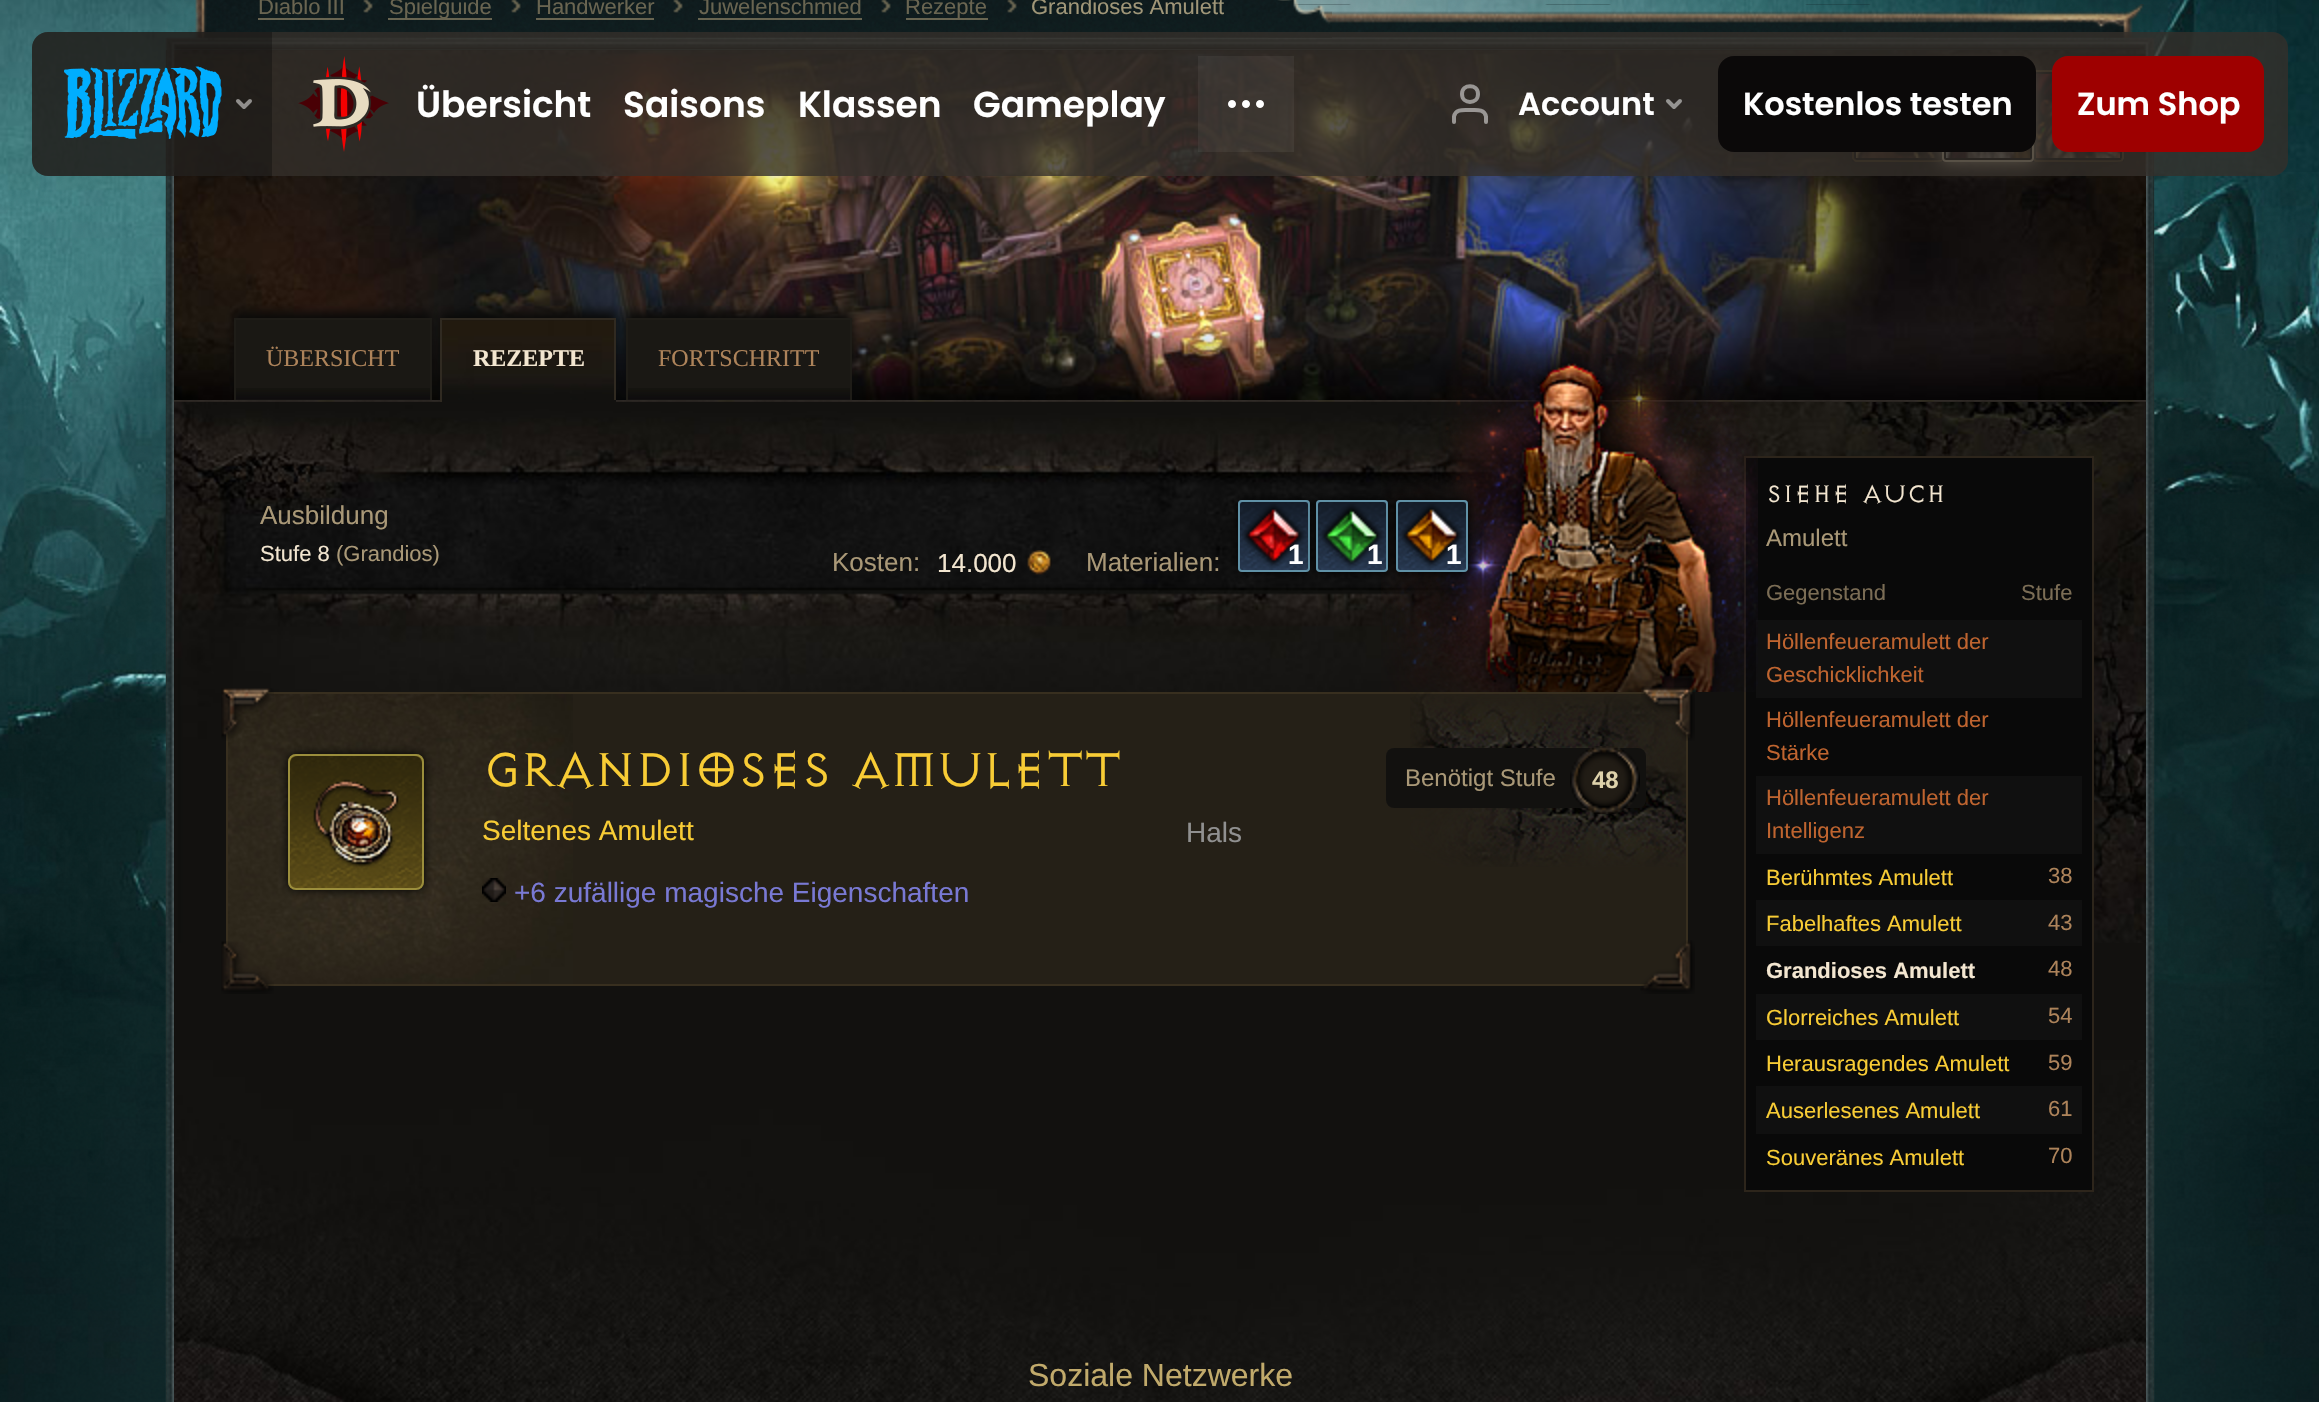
void draw(SkCanvas* c) {
SkPaint p;
p.setAntiAlias(true);
auto F=[&](const char* family, int weight, float size, bool italic = false){SkFontStyle style(weight, SkFontStyle::kNormal_Width,italic ? SkFontStyle::kItalic_Slant : SkFontStyle::kUpright_Slant);SkFont result(fontMgr->matchFamilyStyle(family, style), size);result.setSubpixel(true);return result;};
auto T=[&](const char* s, float x, float y, const SkFont& font){c->drawString(s, x, y, font, p);};
auto L=[&](const char* s, float x, float y, const SkFont& font, const SkPaint& ink, float letter, float word){std::vector<SkGlyphID> glyphs(font.countText(s, strlen(s), SkTextEncoding::kUTF8));std::vector<float> xs(glyphs.size());font.textToGlyphs(s, strlen(s), SkTextEncoding::kUTF8, glyphs);font.getXPos(glyphs, xs, x);float extra = 0;for (size_t i = 0; i < glyphs.size(); i++) {xs[i] += extra;extra += letter + word * (glyphs[i] == font.unicharToGlyph(' '));}c->drawTextBlob(SkTextBlob::MakeFromPosHGlyphs(glyphs, xs, y, font), 0, 0, ink);};
auto R=[&](float x, float y, float w, float h){c->drawRect(SkRect::MakeXYWH(x, y, w, h), p);};
auto Q=[&](float x, float y, float w, float h, float radius){c->drawRoundRect(SkRect::MakeXYWH(x, y, w, h), radius, radius, p);};
auto I=[&](const char* path, float x, float y, float w, float h){auto image = SkImages::DeferredFromEncodedData(SkData::MakeFromFileName(path));c->drawImageRect(image, SkRect::MakeXYWH(x, y, w, h), SkSamplingOptions());};
auto P=[&](const char* data, bool evenOdd = false){SkPath result = *SkParsePath::FromSVGString(data);if (evenOdd) result.setFillType(SkPathFillType::kEvenOdd);return result;};
c->clear(0xffffffff);
I("1.png",0,0,2319,1402);
I("2.png",166,410,1988,650);
I("3.png",186,0,240,39);
auto f1 = F("Liberation Sans",400,22);
p.setColor(0xff6d624c);
T("Diablo III",258,14,f1);
R(258,18,86,2);
I("4.png",363,0,10,13);
I("11.png",426,4,1488,34);
I("6.png",426,0,842,38);
R(388,18,104,2);
T("Spielguide",389,14,f1);
I("5.png",511,0,10,13);
T("Handwerker",536,14,f1);
R(536,18,118,2);
I("7.png",673,0,10,13);
T("Juwelenschmied",699,14,f1);
R(698,18,164,2);
I("8.png",881,0,10,13);
R(906,18,82,2);
T("Rezepte",905,14,f1);
I("9.png",1007,0,10,13);
p.setColor(0xffa99877);
T("Grandioses Amulett",1031,14,f1);
I("10.png",1268,0,64,38);
I("12.png",1914,4,230,34);
I("14.png",166,50,1988,360);
I("16.png",166,1060,1988,342);
I("24.png",166,402,1980,541);
I("13.png",0,172,174,1230);
p.setColor(0xff0c0b0a);
p.setMaskFilter(SkMaskFilter::MakeBlur(kNormal_SkBlurStyle, 5));
c->drawRect(SkRect::MakeXYWH(1852,70,92,92),p);
p.setMaskFilter(nullptr);
c->save();
c->clipRect(SkRect::MakeXYWH(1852,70,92,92));
p.setColor(0xff000000);
p.setMaskFilter(SkMaskFilter::MakeBlur(kNormal_SkBlurStyle, 5));
c->drawRoundRect(SkRect::MakeXYWH(1852,70,92,92),4,4,p);
p.setMaskFilter(nullptr);
c->restore();
Q(1852,70,92,92,4);
I("17.png",1856,152,81,6);
p.setStroke(true);
p.setStrokeWidth(2);
p.setColor(0xff59411c);
c->drawPath(P("M1942 72l1 2v14c0 8 1 70-.5 72h-.5"),p);
c->save();
c->clipRect(SkRect::MakeXYWH(1852,70,92,92));
p.setColor(0xff463419);
c->drawPath(P("M1942 160v.5c-2 1.5-64 .5-72 .5h-14l-2-1"),p);
c->restore();
p.setColor(0xff3a2912);
c->drawPath(P("M1854 160l-1-2v-14c0-8-1-70 .5-72h.5"),p);
p.setStroke(false);
p.setColor(0xff0c0b0a);
p.setMaskFilter(SkMaskFilter::MakeBlur(kNormal_SkBlurStyle, 5));
c->drawRect(SkRect::MakeXYWH(2032,70,92,92),p);
p.setMaskFilter(nullptr);
c->save();
c->clipRect(SkRect::MakeXYWH(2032,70,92,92));
p.setColor(0xff000000);
p.setMaskFilter(SkMaskFilter::MakeBlur(kNormal_SkBlurStyle, 5));
c->drawRoundRect(SkRect::MakeXYWH(2032,70,92,92),4,4,p);
p.setMaskFilter(nullptr);
c->restore();
Q(2032,70,92,92,4);
I("19.png",2036,74,84,84);
p.setStroke(true);
p.setColor(0xff574320);
c->drawPath(P("M2034 72l2-1h14c8 0 70-1 72 .5v.5"),p);
p.setColor(0xff59411c);
c->drawPath(P("M2122 72h.5c1.5 2 .5 64 .5 72v14l-1 2"),p);
c->save();
c->clipRect(SkRect::MakeXYWH(2032,70,92,92));
p.setColor(0xff463419);
c->drawPath(P("M2122 160v.5c-2 1.5-64 .5-72 .5h-14l-2-1"),p);
c->restore();
p.setColor(0xff3a2912);
c->drawPath(P("M2034 160h-.5c-1.5-2-.5-64-.5-72v-14l1-2"),p);
p.setStroke(false);
p.setColor(0xffead8b9);
p.setMaskFilter(SkMaskFilter::MakeBlur(kNormal_SkBlurStyle, 8));
c->drawRect(SkRect::MakeXYWH(1942,70,92,92),p);
p.setMaskFilter(nullptr);
c->save();
c->clipRect(SkRect::MakeXYWH(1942,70,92,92));
p.setColor(0xff000000);
p.setMaskFilter(SkMaskFilter::MakeBlur(kNormal_SkBlurStyle, 5));
c->drawRoundRect(SkRect::MakeXYWH(1942,70,92,92),4,4,p);
p.setMaskFilter(nullptr);
c->restore();
Q(1942,70,92,92,4);
I("18.png",1946,148,84,10);
p.setStroke(true);
p.setColor(0xffead8b9);
c->drawRoundRect(SkRect::MakeXYWH(1943,71,90,90),3,3,p);
I("15.png",165,0,2112,172);
I("20.png",174,400,1972,2);
p.setStroke(false);
p.setColor(0xff090908);
p.setMaskFilter(SkMaskFilter::MakeBlur(kNormal_SkBlurStyle, 5));
c->drawRect(SkRect::MakeXYWH(234,312,198,82),p);
p.setMaskFilter(nullptr);
p.setColor(0xff1a1814);
R(236,320,194,68);
I("21.png",236,388,194,12);
p.setColor(0xff1e1c17);
R(234,318,198,2);
R(430,318,2,82);
R(234,318,2,82);
auto f2 = F("Liberation Serif",400,24);
p.setColor(0xffad835a);
T("ÜBERSICHT",266,366,f2);
p.setColor(0xff090908);
p.setMaskFilter(SkMaskFilter::MakeBlur(kNormal_SkBlurStyle, 5));
c->drawRect(SkRect::MakeXYWH(440,312,176,84),p);
p.setMaskFilter(nullptr);
I("22.png",442,320,172,80);
p.setColor(0xff302a21);
R(440,318,176,2);
R(614,318,2,84);
p.setColor(0xff12110f);
R(440,400,176,2);
p.setColor(0xff302a21);
R(440,318,2,84);
auto f3 = F("Liberation Serif",700,24);
p.setColor(0xfff3e6d0);
T("REZEPTE",473,366,f3);
p.setColor(0xff090908);
p.setMaskFilter(SkMaskFilter::MakeBlur(kNormal_SkBlurStyle, 5));
c->drawRect(SkRect::MakeXYWH(626,312,226,82),p);
p.setMaskFilter(nullptr);
p.setColor(0xff1a1814);
R(628,320,222,68);
I("23.png",628,388,222,12);
p.setColor(0xff1e1c17);
R(626,318,226,2);
R(850,318,2,82);
R(626,318,2,82);
p.setColor(0xffad835a);
T("FORTSCHRITT",658,366,f2);
auto f4 = F("Liberation Sans",400,26);
p.setColor(0xffa99877);
T("Ausbildung",260,524,f4);
p.setColor(0xfff3e6d0);
T("Stufe 8",260,561,f1);
p.setColor(0xffa99877);
T("(Grandios)",336,561,f1);
T("Kosten:",832,571,f4);
p.setColor(0xfff3e6d0);
T("14.000",937,572,f4);
I("25.png",1027,550,25,25);
p.setColor(0xffa99877);
T("Materialien:",1086,571,f4);
p.setColor(0xff000000);
p.setMaskFilter(SkMaskFilter::MakeBlur(kNormal_SkBlurStyle, 5));
c->drawRoundRect(SkRect::MakeXYWH(1238,500,72,72),4,4,p);
p.setMaskFilter(nullptr);
I("26.png",1238,500,72,70);
p.setStroke(true);
p.setColor(0xff6091a6);
c->drawRoundRect(SkRect::MakeXYWH(1239,501,70,70),3,3,p);
p.setStroke(false);
{
const SkColor colors[] = {0x73000000,0x00000000};
const float stops[] = {0,1};
const SkPoint ends[] = {{1274,502}, {1274,570}};
p.setShader(SkGradientShader::MakeLinear(ends, colors, stops, 2, SkTileMode::kClamp));
p.setAlpha(255);
}
Q(1240,502,68,68,4);
I("27.png",1242,504,64,64);
auto f5 = F("Liberation Sans",700,28);
p.setShader(nullptr);
p.setColor(0xffffffff);
T("1",1288,564,f5);
p.setColor(0xff090909);
c->drawRect(SkRect::MakeXYWH(1745,457,348,734),p);
p.setStroke(true);
p.setColor(0xff2d251b);
c->drawRect(SkRect::MakeXYWH(1745,457,348,734),p);
p.setStroke(false);
p.setColor(0xff101010);
R(1756,620,326,78);
I("32.png",1381,328,377,364);
p.setColor(0xff000000);
p.setMaskFilter(SkMaskFilter::MakeBlur(kNormal_SkBlurStyle, 5));
c->drawRoundRect(SkRect::MakeXYWH(1316,500,72,72),4,4,p);
p.setMaskFilter(nullptr);
I("28.png",1316,500,72,70);
p.setStroke(true);
p.setColor(0xff6091a6);
c->drawRoundRect(SkRect::MakeXYWH(1317,501,70,70),3,3,p);
p.setStroke(false);
{
const SkColor colors[] = {0x73000000,0x00000000};
const float stops[] = {0,1};
const SkPoint ends[] = {{1352,502}, {1352,570}};
p.setShader(SkGradientShader::MakeLinear(ends, colors, stops, 2, SkTileMode::kClamp));
p.setAlpha(255);
}
Q(1318,502,68,68,4);
I("29.png",1320,504,64,64);
p.setShader(nullptr);
p.setColor(0xffffffff);
T("1",1367,564,f5);
p.setColor(0xff000000);
p.setMaskFilter(SkMaskFilter::MakeBlur(kNormal_SkBlurStyle, 5));
c->drawRoundRect(SkRect::MakeXYWH(1396,500,72,72),4,4,p);
p.setMaskFilter(nullptr);
I("30.png",1396,500,72,70);
p.setStroke(true);
p.setColor(0xff6091a6);
c->drawRoundRect(SkRect::MakeXYWH(1397,501,70,70),3,3,p);
p.setStroke(false);
{
const SkColor colors[] = {0x73000000,0x00000000};
const float stops[] = {0,1};
const SkPoint ends[] = {{1432,502}, {1432,570}};
p.setShader(SkGradientShader::MakeLinear(ends, colors, stops, 2, SkTileMode::kClamp));
p.setAlpha(255);
}
Q(1398,502,68,68,4);
I("31.png",1400,504,64,64);
p.setShader(nullptr);
p.setColor(0xffffffff);
T("1",1446,564,f5);
p.setColor(0xff252017);
R(573,694,1113,290);
I("33.png",228,694,345,290);
p.setStroke(true);
p.setColor(0xff382f1f);
c->drawRect(SkRect::MakeXYWH(227,693,1460,292),p);
p.setStroke(false);
p.setColor(0xff000000);
p.setMaskFilter(SkMaskFilter::MakeBlur(kNormal_SkBlurStyle, 5));
c->drawRoundRect(SkRect::MakeXYWH(288,754,136,136),8,8,p);
p.setMaskFilter(nullptr);
I("34.png",221,688,53,53);
I("39.png",1410,692,276,175);
I("35.png",1641,686,54,55);
I("36.png",288,754,136,134);
p.setStroke(true);
p.setColor(0xff9b8e3c);
c->drawRoundRect(SkRect::MakeXYWH(289,755,134,134),7,7,p);
p.setStroke(false);
{
const SkColor colors[] = {0x73000000,0x00000000};
const float stops[] = {0,1};
const SkPoint ends[] = {{356,756}, {356,888}};
p.setShader(SkGradientShader::MakeLinear(ends, colors, stops, 2, SkTileMode::kClamp));
p.setAlpha(255);
}
Q(290,756,132,132,8);
I("37.png",313,779,88,91);
auto f6 = F("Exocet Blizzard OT",300,56);
p.setShader(nullptr);
p.setColor(0xfff8cc35);
L("GRANDIOSES AMULETT",482,786,f6,p,-3,0);
auto f7 = F("Liberation Sans",400,28);
T("Seltenes Amulett",482,840,f7);
p.setColor(0xff909090);
T("Hals",1186,842,f7);
I("38.png",482,878,24,24);
p.setColor(0xff7979d4);
T("+6 zufällige magische Eigenschaften",514,902,f7);
p.setColor(0xff12110f);
Q(1386,748,260,60,8);
auto f8 = F("Liberation Sans",400,24);
p.setColor(0xffa99877);
T("Benötigt Stufe",1405,786,f8);
I("40.png",1570,746,70,68);
auto f9 = F("Liberation Sans",700,24);
p.setColor(0xffded2ab);
T("48",1592,788,f9);
I("41.png",221,941,53,53);
I("42.png",1640,940,55,54);
auto f10 = F("Exocet Blizzard OT",300,28);
p.setColor(0xfff3e6d0);
T("SIEHE AUCH",1766,502,f10);
p.setColor(0xffa99877);
T("Amulett",1766,546,f8);
p.setColor(0xff7b6d55);
T("Gegenstand",1766,600,f1);
T("Stufe",2021,600,f1);
p.setColor(0xffbf642f);
T("Höllenfeueramulett der",1766,649,f1);
T("Geschicklichkeit",1766,682,f1);
T("Höllenfeueramulett der",1766,727,f1);
T("Stärke",1766,760,f1);
p.setColor(0xff101010);
R(1756,776,326,78);
p.setColor(0xffbf642f);
T("Höllenfeueramulett der",1766,805,f1);
T("Intelligenz",1766,838,f1);
p.setColor(0xfff8cc35);
T("Berühmtes Amulett",1766,885,f1);
p.setColor(0xffad835a);
T("38",2048,883,f1);
p.setColor(0xff101010);
R(1756,900,326,46);
p.setColor(0xfff8cc35);
T("Fabelhaftes Amulett",1766,931,f1);
p.setColor(0xffad835a);
T("43",2048,930,f1);
auto f11 = F("Liberation Sans",700,22);
p.setColor(0xfff3e6d0);
T("Grandioses Amulett",1766,978,f11);
p.setColor(0xffad835a);
T("48",2048,976,f1);
p.setColor(0xff101010);
R(1756,994,326,46);
p.setColor(0xfff8cc35);
T("Glorreiches Amulett",1766,1025,f1);
p.setColor(0xffad835a);
T("54",2048,1023,f1);
p.setColor(0xfff8cc35);
T("Herausragendes Amulett",1766,1071,f1);
p.setColor(0xffad835a);
T("59",2048,1070,f1);
p.setColor(0xff101010);
R(1756,1086,326,48);
p.setColor(0xfff8cc35);
T("Auserlesenes Amulett",1766,1118,f1);
p.setColor(0xffad835a);
T("61",2048,1116,f1);
p.setColor(0xfff8cc35);
T("Souveränes Amulett",1766,1165,f1);
p.setColor(0xffad835a);
T("70",2048,1163,f1);
auto f12 = F("Liberation Sans",400,32);
p.setColor(0xffc1aa6b);
T("Soziale Netzwerke",1028,1386,f12);
I("43.png",2146,172,173,1230);
p.setColor(0xcc332e29);
Q(32,32,2256,144,16);
p.setColor(0x4d000000);
c->drawPath(P("M48 32h224v144h-224c-9 0-16-7-16-16v-112c0-9 7-16 16-16z"),p);
I("44.png",64,66,158,73);
p.setStroke(true);
p.setStrokeWidth(4);
p.setStrokeCap(SkPaint::kRound_Cap);
p.setStrokeJoin(SkPaint::kRound_Join);
p.setColor(0xff908e8c);
c->drawPath(P("M238 101l6 6l6-6"),p);
I("45.png",298,56,91,96);
auto f13 = F("Poppins",600,36);
p.setStroke(false);
p.setColor(0xffffffff);
T("Übersicht",416,117,f13);
T("Saisons",623,117,f13);
T("Klassen",798,117,f13);
T("Gameplay",973,117,f13);
p.setColor(0x0dffffff);
R(1198,56,96,96);
I("46.png",1228,100,36,8);
p.setStroke(true);
p.setColor(0x80ffffff);
c->drawPath(P("M1486 122v-5.5c-1.5-8-10-6.5-16-6.5c-6 0-14.5-1.5-16 6.5v5.5m24-28c0 10.5-16 10.5-16 0c0-10.5 16-10.5 16 0"),p);
auto f14 = F("Poppins",600,32);
p.setStroke(false);
p.setColor(0xffffffff);
T("Account",1518,115,f14);
p.setStroke(true);
p.setColor(0xff959492);
c->drawPath(P("M1668 101l6 6l6-6"),p);
p.setStroke(false);
p.setColor(0xff0b0909);
Q(1718,56,318,96,16);
p.setColor(0xffffffff);
T("Kostenlos testen",1743,115,f14);
p.setColor(0xff9e0000);
Q(2052,56,212,96,16);
p.setColor(0xffffffff);
T("Zum Shop",2077,115,f14);
}
